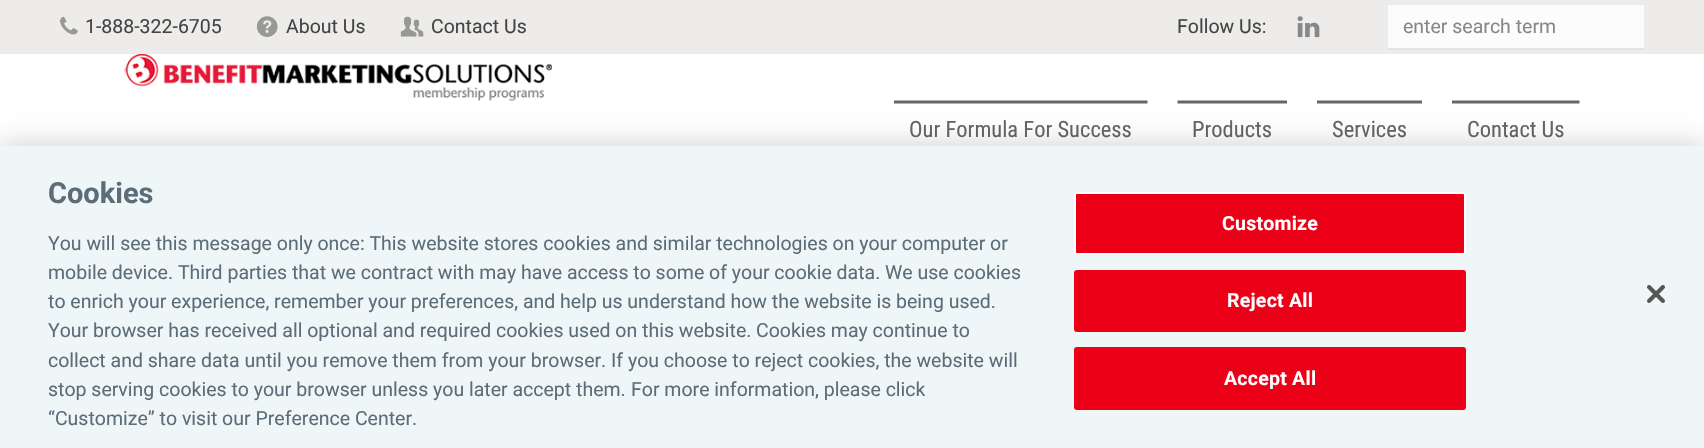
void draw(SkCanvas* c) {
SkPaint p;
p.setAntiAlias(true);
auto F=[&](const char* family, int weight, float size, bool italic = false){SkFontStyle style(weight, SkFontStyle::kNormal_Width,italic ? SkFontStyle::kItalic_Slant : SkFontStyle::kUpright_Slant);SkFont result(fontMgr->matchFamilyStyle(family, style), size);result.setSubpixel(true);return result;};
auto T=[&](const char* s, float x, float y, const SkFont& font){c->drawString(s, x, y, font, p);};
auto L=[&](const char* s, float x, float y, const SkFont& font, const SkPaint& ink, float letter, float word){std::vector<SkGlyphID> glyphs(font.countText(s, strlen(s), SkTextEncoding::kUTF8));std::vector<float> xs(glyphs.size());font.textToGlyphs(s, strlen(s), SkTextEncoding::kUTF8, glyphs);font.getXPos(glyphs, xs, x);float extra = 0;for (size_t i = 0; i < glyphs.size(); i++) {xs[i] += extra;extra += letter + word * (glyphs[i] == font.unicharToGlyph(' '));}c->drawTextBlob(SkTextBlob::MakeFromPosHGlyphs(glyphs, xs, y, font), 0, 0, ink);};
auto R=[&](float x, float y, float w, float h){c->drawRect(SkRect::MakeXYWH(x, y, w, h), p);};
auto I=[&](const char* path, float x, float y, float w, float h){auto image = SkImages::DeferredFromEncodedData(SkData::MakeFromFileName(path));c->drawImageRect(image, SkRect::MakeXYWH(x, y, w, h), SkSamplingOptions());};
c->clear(0xffffffff);
p.setColor(0xffedecea);
R(0,0,1704,54);
I("1.png",60,16,18,19);
auto f1 = F("Roboto",400,19.5);
p.setColor(0xff444444);
T("1-888-322-6705",85,33,f1);
I("2.png",256,16,22,21);
T("About Us",286,33,f1);
I("3.png",400,16,24,21);
T("Contact Us",431,33,f1);
T("Follow Us:",1177,33,f1);
I("4.png",1297,16,23,22);
p.setColor(0xfffcfcfc);
R(1388,5,256,43);
p.setColor(0xffe3e3e3);
R(1388,48,256,2);
p.setColor(0xff888888);
T("enter search term",1403,33,f1);
I("5.png",124,54,428,47);
I("6.png",894,100,254,4);
auto f2 = F("Roboto Condensed",400,22.5);
p.setColor(0xff666666);
T("Our Formula For Success",909,137,f2);
I("7.png",1177,100,110,4);
T("Products",1192,137,f2);
I("8.png",1317,100,105,4);
T("Services",1332,137,f2);
I("9.png",1452,100,128,4);
T("Contact Us",1467,137,f2);
p.setColor(0x33000000);
p.setMaskFilter(SkMaskFilter::MakeBlur(kNormal_SkBlurStyle, 13.5));
c->drawRect(SkRect::MakeXYWH(0,146,1704,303),p);
p.setMaskFilter(nullptr);
p.setColor(0xffeef6f7);
R(0,146,1704,302);
auto f3 = F("Roboto",700,29);
p.setColor(0xff5d6d78);
T("Cookies",48,203,f3);
T("You will see this message only once: This website stores cookies and similar technologies on your computer or",48,250,f1);
T("mobile device. Third parties that we contract with may have access to some of your cookie data.",48,279,f1);
T("We use cookies",885,279,f1);
T("to enrich your experience, remember your preferences, and help us understand how the website is being used.",48,308,f1);
T("Your browser has received all optional and required cookies used on this website.",48,337,f1);
T("Cookies may continue to",756,337,f1);
T("collect and share data until you remove them from your browser.",48,367,f1);
T("If you choose to reject cookies, the website will",611,367,f1);
T("stop serving cookies to your browser unless you later accept them.",48,396,f1);
T("For more information, please click",631,396,f1);
T("“Customize” to visit our Preference Center.",48,425,f1);
p.setColor(0xffeb0017);
c->drawRoundRect(SkRect::MakeXYWH(1075,193,390,61),2,2,p);
p.setStroke(true);
p.setStrokeWidth(2);
p.setColor(0xffffffff);
c->drawRoundRect(SkRect::MakeXYWH(1075,193,390,61),2,2,p);
auto f4 = F("Roboto",700,19.5);
p.setStroke(false);
L("Customize",1222,230,f4,p,.25,0);
p.setColor(0xffeb0017);
c->drawRoundRect(SkRect::MakeXYWH(1075,271,390,60),2,2,p);
p.setStroke(true);
c->drawRoundRect(SkRect::MakeXYWH(1075,271,390,60),2,2,p);
p.setStroke(false);
p.setColor(0xffffffff);
L("Reject All",1227,307,f4,p,.25,0);
p.setColor(0xffeb0017);
c->drawRoundRect(SkRect::MakeXYWH(1075,348,390,61),2,2,p);
p.setStroke(true);
c->drawRoundRect(SkRect::MakeXYWH(1075,348,390,61),2,2,p);
p.setStroke(false);
p.setColor(0xffffffff);
L("Accept All",1224,385,f4,p,.25,0);
I("10.png",1647,285,18,18);
}
